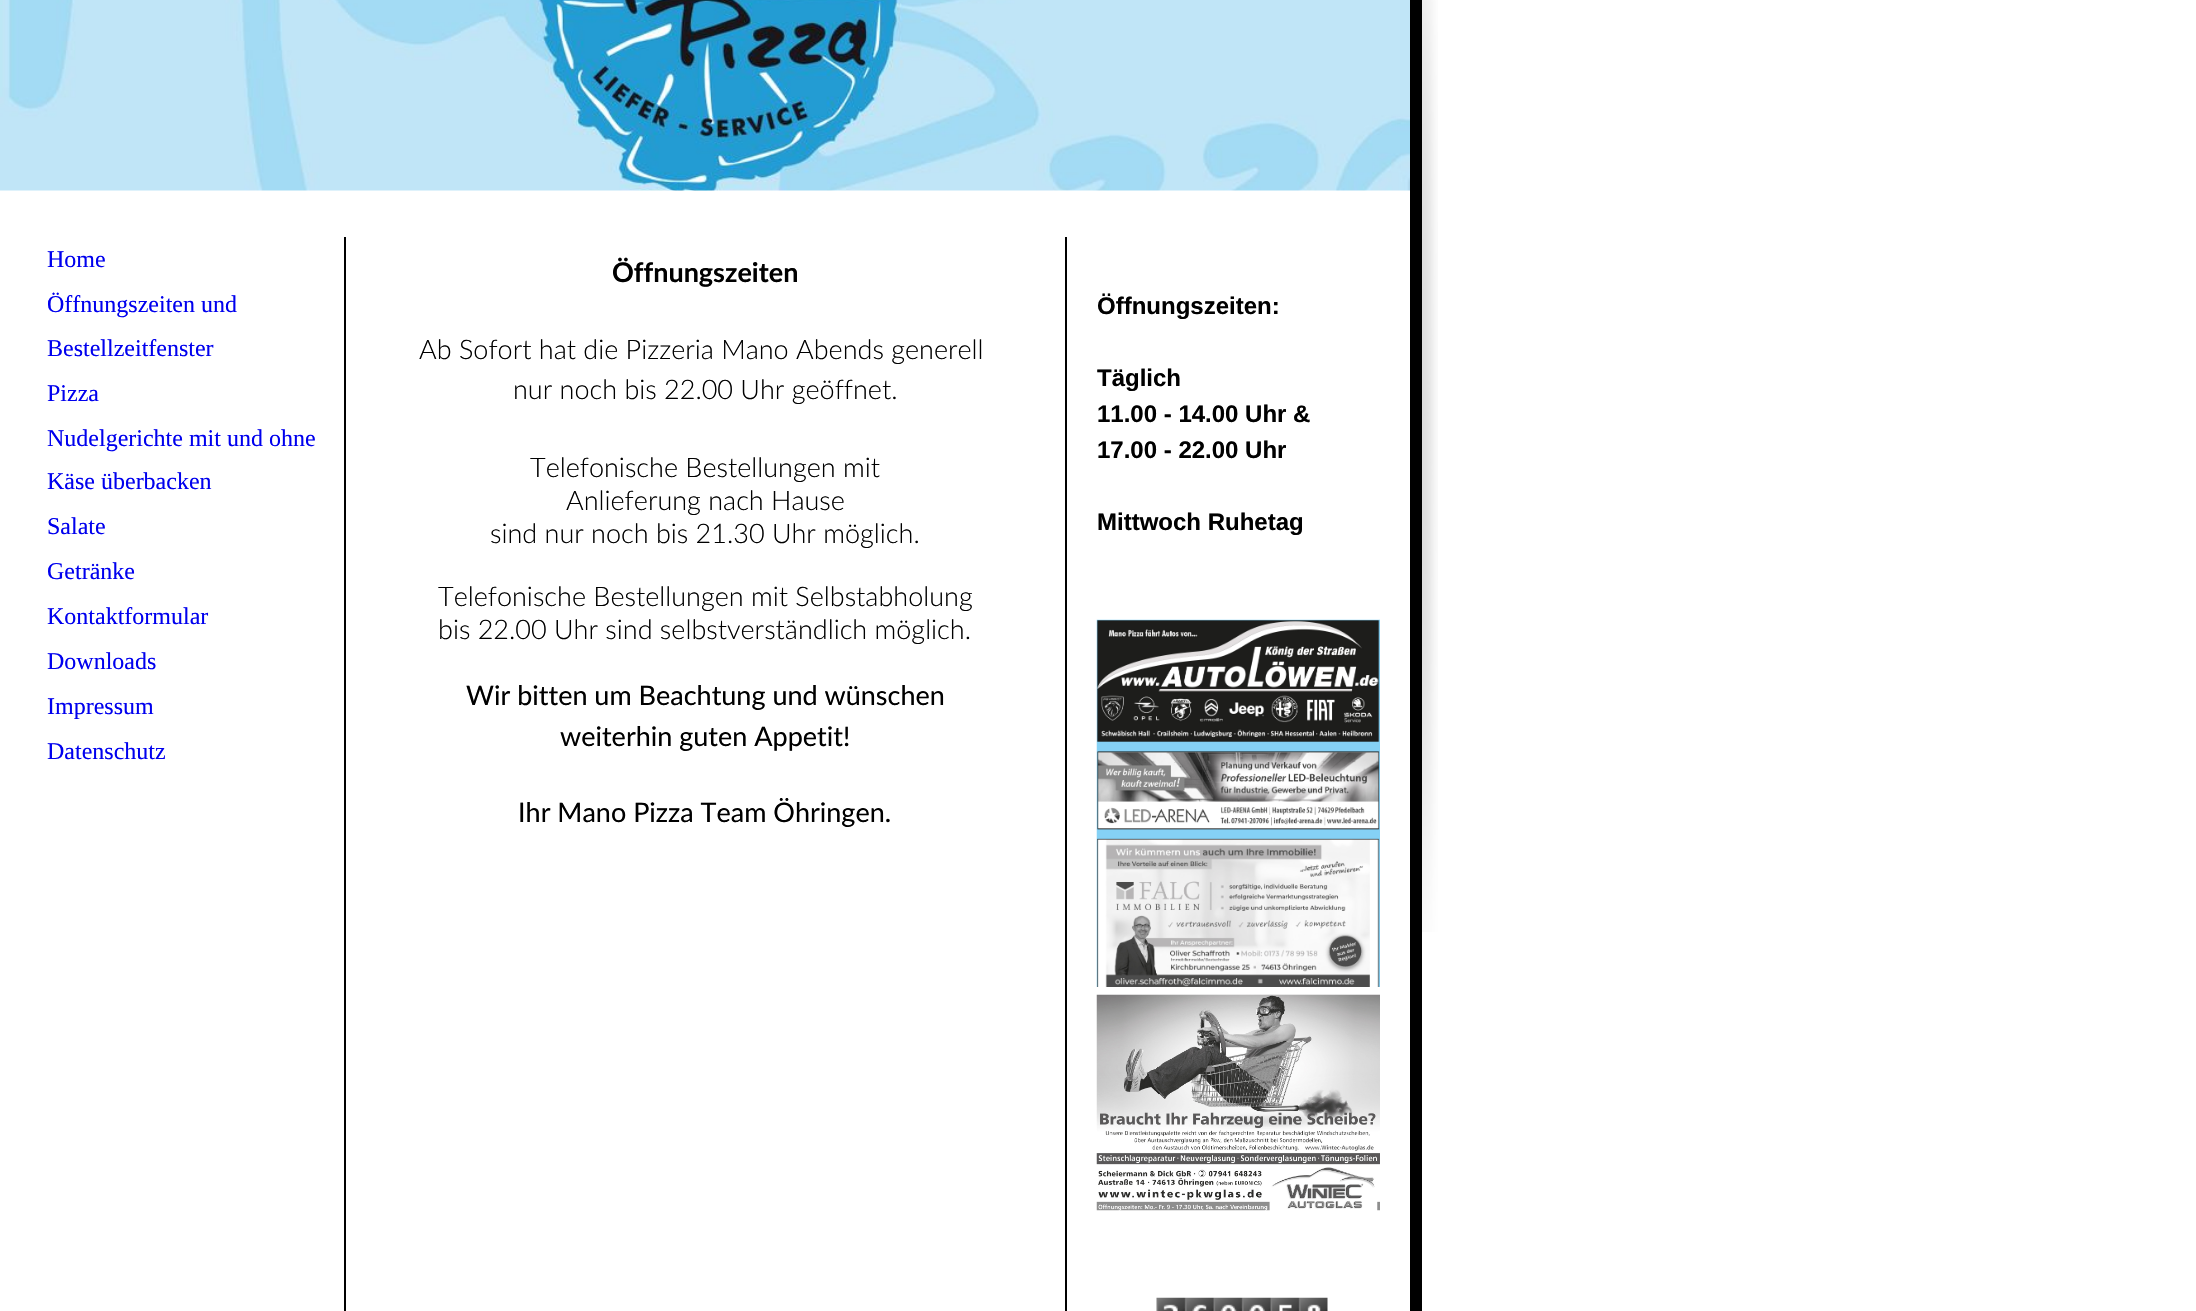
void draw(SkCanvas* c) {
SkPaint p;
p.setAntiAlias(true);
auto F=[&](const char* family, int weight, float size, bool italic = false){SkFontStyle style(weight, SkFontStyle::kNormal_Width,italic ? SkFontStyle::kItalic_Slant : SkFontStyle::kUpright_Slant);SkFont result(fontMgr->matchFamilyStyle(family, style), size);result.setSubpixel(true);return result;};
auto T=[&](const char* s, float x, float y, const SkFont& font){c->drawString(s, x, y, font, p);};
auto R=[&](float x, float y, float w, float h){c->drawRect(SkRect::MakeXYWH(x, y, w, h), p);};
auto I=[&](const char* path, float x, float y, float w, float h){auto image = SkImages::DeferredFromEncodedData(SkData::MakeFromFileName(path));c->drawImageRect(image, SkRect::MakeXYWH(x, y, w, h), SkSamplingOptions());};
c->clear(0xffffffff);
p.setColor(0xff000000);
R(1410,0,12,1311);
I("1.png",0,0,1410,191);
R(344,237,2,1074);
auto f1 = F("Liberation Serif",400,24);
p.setColor(0xff0000ee);
T("Home",47,267,f1);
T("Öffnungszeiten und",47,312,f1);
T("Bestellzeitfenster",47,356,f1);
T("Pizza",47,401,f1);
T("Nudelgerichte mit und ohne",47,446,f1);
T("Käse überbacken",47,489,f1);
T("Salate",47,534,f1);
T("Getränke",47,579,f1);
T("Kontaktformular",47,624,f1);
T("Downloads",47,669,f1);
T("Impressum",47,714,f1);
T("Datenschutz",47,759,f1);
auto f2 = F("Lato",700,27);
p.setColor(0xff000000);
T("Öffnungszeiten",612,282,f2);
auto f3 = F("Lato",300,27);
T("Ab Sofort hat die Pizzeria Mano Abends generell",419,359,f3);
T("nur noch bis 22.00 Uhr geöffnet.",513,399,f3);
T("Telefonische Bestellungen mit",530,477,f3);
T("Anlieferung nach Hause",566,510,f3);
T("sind nur noch bis 21.30 Uhr möglich.",490,543,f3);
T("Telefonische Bestellungen mit Selbstabholung",438,606,f3);
T("bis 22.00 Uhr sind selbstverständlich möglich.",438,639,f3);
auto f4 = F("Lato",400,27);
T("Wir bitten um Beachtung und wünschen",466,705,f4);
T("weiterhin guten Appetit!",560,746,f4);
T("Ihr Mano Pizza Team Öhringen.",518,822,f4);
R(1065,237,2,1074);
auto f5 = F("Liberation Sans",700,24);
T("Öffnungszeiten:",1097,314,f5);
T("Täglich",1097,386,f5);
T("11.00 - 14.00 Uhr &",1097,422,f5);
T("17.00 - 22.00 Uhr",1097,458,f5);
T("Mittwoch Ruhetag",1097,530,f5);
I("2.png",1096,619,284,368);
I("3.png",1096,994,284,217);
I("4.png",1156,1297,172,14);
I("5.png",1422,0,16,932);
}
